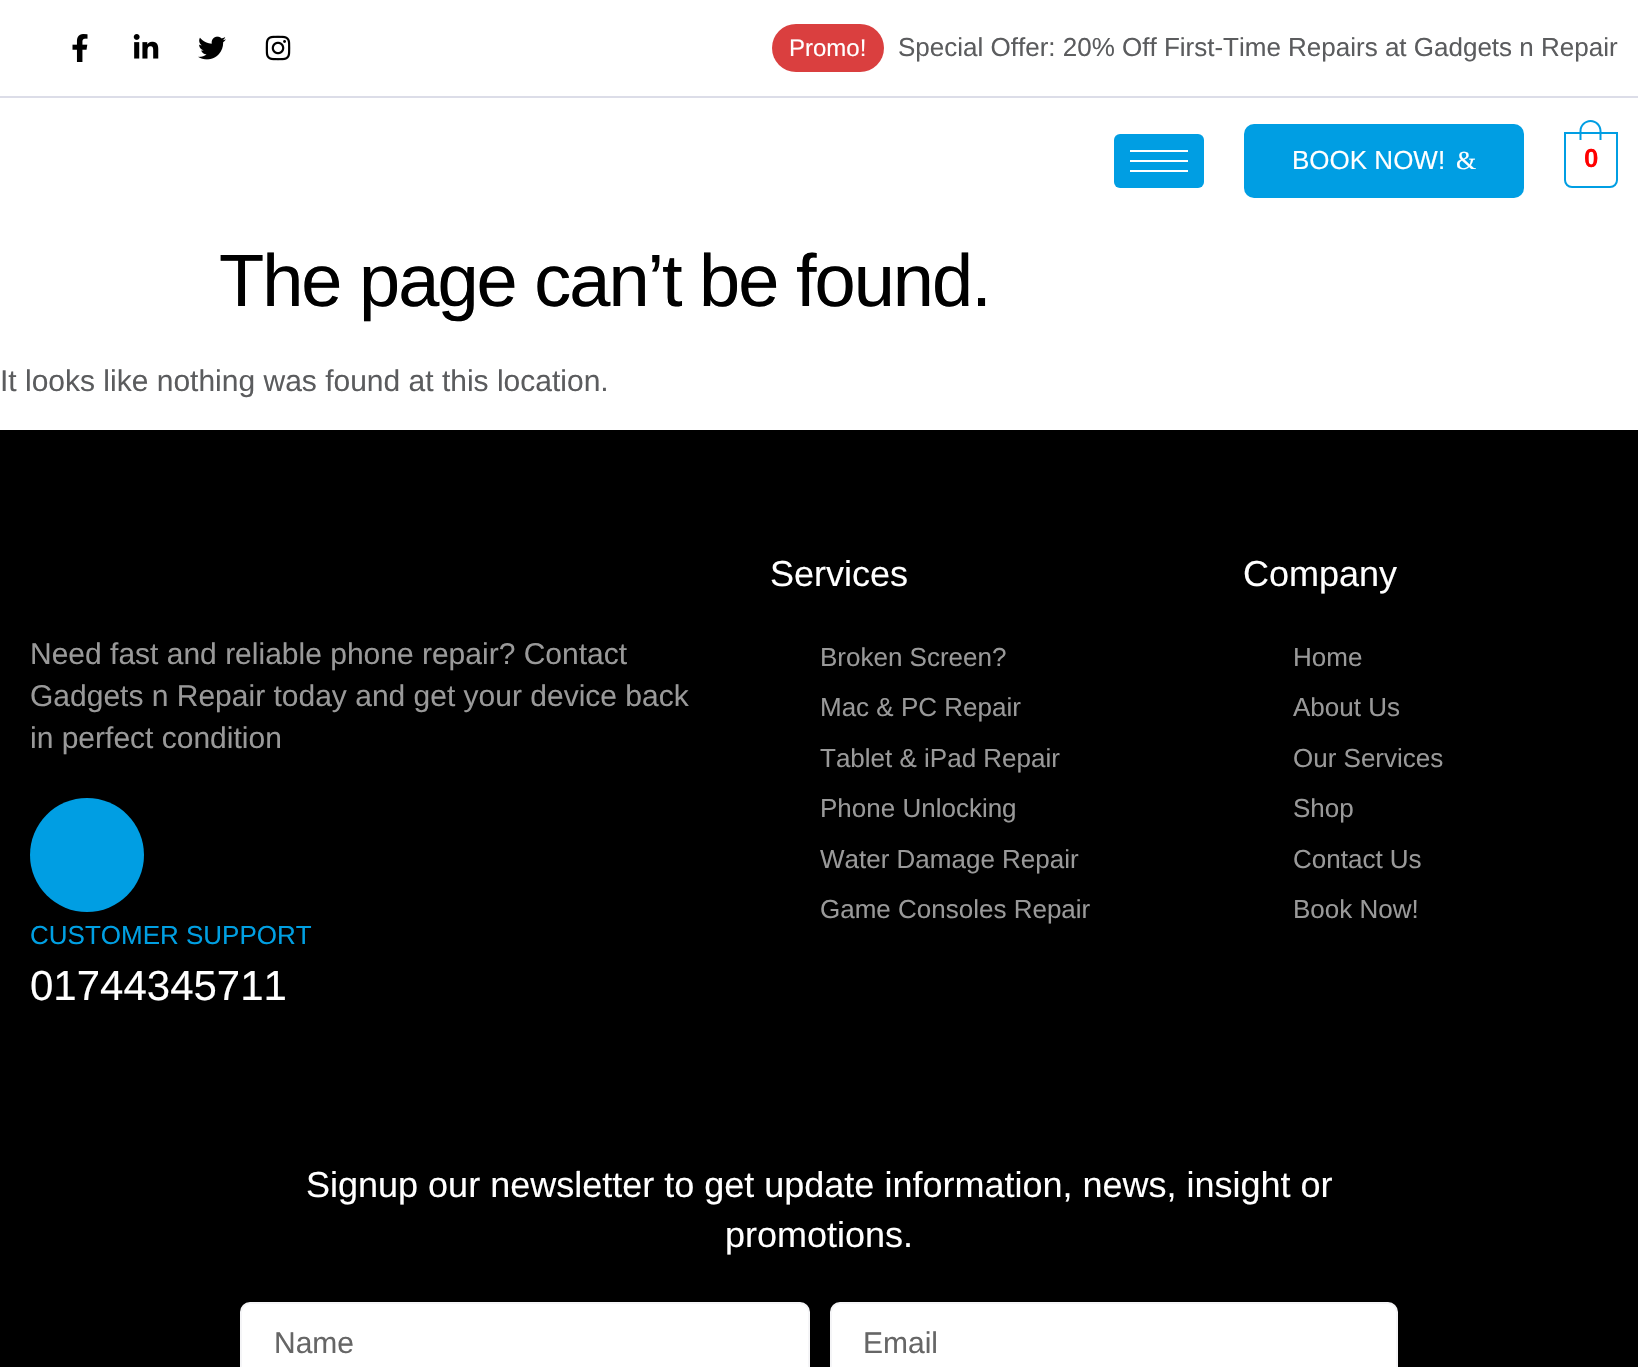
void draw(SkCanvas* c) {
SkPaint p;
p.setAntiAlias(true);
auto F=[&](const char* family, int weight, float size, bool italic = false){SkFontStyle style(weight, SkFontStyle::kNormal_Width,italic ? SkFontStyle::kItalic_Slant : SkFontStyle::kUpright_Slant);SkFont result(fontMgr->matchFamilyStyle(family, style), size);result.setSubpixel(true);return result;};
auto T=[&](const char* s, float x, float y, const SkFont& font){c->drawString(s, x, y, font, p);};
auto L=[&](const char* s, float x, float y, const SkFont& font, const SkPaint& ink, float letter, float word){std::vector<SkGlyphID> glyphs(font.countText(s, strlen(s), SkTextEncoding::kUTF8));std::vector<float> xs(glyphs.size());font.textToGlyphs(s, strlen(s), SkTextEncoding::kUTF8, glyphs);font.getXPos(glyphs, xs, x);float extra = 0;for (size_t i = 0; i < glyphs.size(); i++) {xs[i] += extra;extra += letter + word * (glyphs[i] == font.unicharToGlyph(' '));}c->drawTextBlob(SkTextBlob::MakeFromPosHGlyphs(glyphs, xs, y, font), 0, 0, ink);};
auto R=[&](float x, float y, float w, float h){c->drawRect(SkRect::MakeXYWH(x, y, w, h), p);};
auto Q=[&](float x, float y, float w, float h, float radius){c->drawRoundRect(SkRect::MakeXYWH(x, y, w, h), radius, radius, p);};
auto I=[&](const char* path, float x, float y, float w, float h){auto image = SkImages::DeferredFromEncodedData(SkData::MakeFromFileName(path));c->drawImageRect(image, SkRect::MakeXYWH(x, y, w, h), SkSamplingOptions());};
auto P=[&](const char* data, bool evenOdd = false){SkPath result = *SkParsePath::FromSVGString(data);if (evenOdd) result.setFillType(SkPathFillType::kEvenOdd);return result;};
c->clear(0xffffffff);
p.setColor(0xffdcdde8);
R(0,96,1638,2);
I("1.png",72,34,16,28);
I("2.png",133,34,26,25);
I("3.png",198,36,28,24);
I("4.png",265,35,26,26);
p.setColor(0xffda3f3f);
Q(772,24,112,48,24);
auto f1 = F("Liberation Sans",400,24);
p.setColor(0xffffffff);
T("Promo!",789,56,f1);
auto f2 = F("Liberation Sans",400,26);
p.setColor(0xff5b5c5e);
T("Special Offer: 20% Off First-Time Repairs at Gadgets n Repair",898,56,f2);
p.setColor(0xff009ee3);
Q(1114,134,90,54,6);
p.setColor(0xffffffff);
R(1130,150,58,2);
R(1130,160,58,2);
R(1130,170,58,2);
p.setColor(0xff009ee3);
Q(1244,124,280,74,10);
p.setColor(0xffffffff);
T("BOOK NOW!",1292,169,f2);
auto f3 = F("Liberation Serif",400,26);
T("&",1456,169,f3);
p.setStroke(true);
p.setStrokeWidth(2);
p.setColor(0xff009ee3);
c->drawPath(P("M1565 133h52v47c0 4-3 7-7 7h-38c-4 0-7-3-7-7z"),p);
p.setStroke(false);
c->drawPath(P("M1590.5 120c6.5 0 11 5 11 11v9h-22v-9c0-6 5-11 11-11zm0 2c5 0 9 4 9 9v9h-18v-9c0-5 4-9 9-9z",true),p);
auto f4 = F("Liberation Sans",700,26);
p.setColor(0xffff0000);
T("0",1584,167,f4);
auto f5 = F("Liberation Sans",400,74);
p.setColor(0xff000000);
L("The page can’t be found.",219,306,f5,p,-2,0);
auto f6 = F("Liberation Sans",400,30);
p.setColor(0xff5b5c5e);
T("It looks like nothing was found at this location.",0,391,f6);
p.setColor(0xff000000);
R(0,430,1638,937);
p.setColor(0xff999999);
T("Need fast and reliable phone repair? Contact",30,664,f6);
T("Gadgets n Repair today and get your device back",30,706,f6);
T("in perfect condition",30,748,f6);
p.setColor(0xff009ee3);
c->drawCircle(87,855,57,p);
p.setColor(0xff009fe2);
T("CUSTOMER SUPPORT",30,944,f2);
auto f7 = F("Liberation Sans",400,42);
p.setColor(0xffffffff);
T("01744345711",30,1000,f7);
auto f8 = F("Liberation Sans",400,36);
T("Services",770,586,f8);
p.setColor(0xff999999);
T("Broken Screen?",820,666,f2);
T("Mac & PC Repair",820,716,f2);
T("Tablet & iPad Repair",820,767,f2);
T("Phone Unlocking",820,817,f2);
T("Water Damage Repair",820,868,f2);
T("Game Consoles Repair",820,918,f2);
p.setColor(0xffffffff);
T("Company",1243,586,f8);
p.setColor(0xff999999);
T("Home",1293,666,f2);
T("About Us",1293,716,f2);
T("Our Services",1293,767,f2);
T("Shop",1293,817,f2);
T("Contact Us",1293,868,f2);
T("Book Now!",1293,918,f2);
p.setColor(0xffffffff);
T("Signup our newsletter to get update information, news, insight or",306,1197,f8);
T("promotions.",725,1247,f8);
c->drawRoundRect(SkRect::MakeXYWH(241,1303,568,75),9,9,p);
p.setStroke(true);
p.setColor(0xfff5f5f7);
c->drawRoundRect(SkRect::MakeXYWH(241,1303,568,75),9,9,p);
p.setStroke(false);
p.setColor(0xff666666);
T("Name",274,1353,f6);
p.setColor(0xffffffff);
c->drawRoundRect(SkRect::MakeXYWH(831,1303,566,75),9,9,p);
p.setStroke(true);
p.setColor(0xfff5f5f7);
c->drawRoundRect(SkRect::MakeXYWH(831,1303,566,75),9,9,p);
p.setStroke(false);
p.setColor(0xff666666);
T("Email",863,1353,f6);
}
